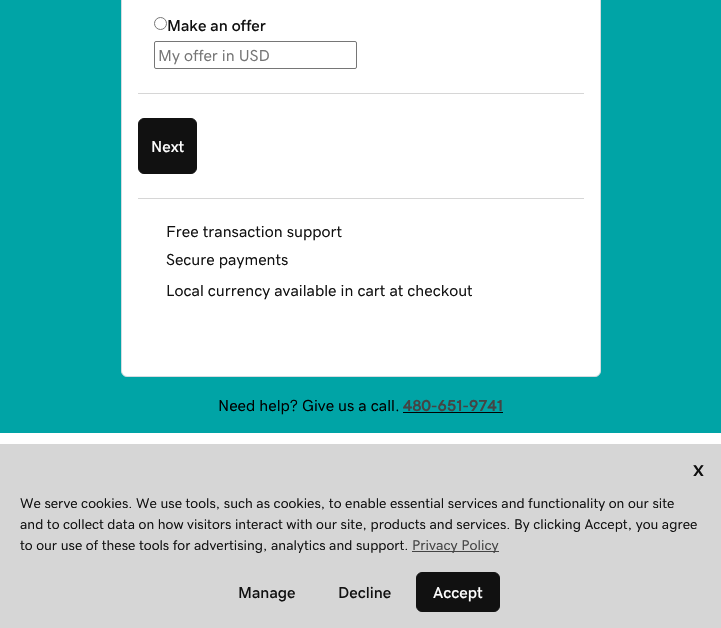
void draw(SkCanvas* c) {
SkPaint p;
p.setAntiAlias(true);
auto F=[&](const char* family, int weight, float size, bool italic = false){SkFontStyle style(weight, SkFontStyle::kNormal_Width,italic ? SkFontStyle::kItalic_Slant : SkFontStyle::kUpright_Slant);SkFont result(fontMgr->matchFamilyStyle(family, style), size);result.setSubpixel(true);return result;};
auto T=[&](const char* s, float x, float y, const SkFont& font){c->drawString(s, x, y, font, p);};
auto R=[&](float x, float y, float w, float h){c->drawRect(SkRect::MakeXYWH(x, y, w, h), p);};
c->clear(0xffffffff);
p.setColor(0xff00a4a6);
R(0,0,721,433);
p.setColor(0xffffffff);
c->drawRoundRect(SkRect::MakeXYWH(121.5,-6.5,479,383),5.5,5.5,p);
p.setStroke(true);
p.setStrokeWidth(1);
p.setColor(0xffd4dbe0);
c->drawRoundRect(SkRect::MakeXYWH(121.5,-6.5,479,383),5.5,5.5,p);
p.setColor(0xff767676);
c->drawCircle(160.5,23.5,6,p);
auto f1 = F("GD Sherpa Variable",500,16);
p.setStroke(false);
p.setColor(0xff111111);
T("Make an offer",167,31,f1);
p.setStroke(true);
p.setColor(0xff767676);
c->drawRoundRect(SkRect::MakeXYWH(154.5,41.5,202,27),1.5,1.5,p);
auto f2 = F("GD Sherpa Variable",400,16);
p.setStroke(false);
p.setColor(0xff757575);
T("My offer in USD",158,61,f2);
p.setColor(0xffd6d6d6);
R(138,93,446,1);
p.setColor(0xff111111);
c->drawRoundRect(SkRect::MakeXYWH(138.5,118.5,58,55),5.5,5.5,p);
p.setStroke(true);
c->drawRoundRect(SkRect::MakeXYWH(138.5,118.5,58,55),5.5,5.5,p);
p.setStroke(false);
p.setColor(0xffffffff);
T("Next",151,152,f1);
p.setColor(0xffd6d6d6);
R(138,198,446,1);
p.setColor(0xff111111);
T("Free transaction support",166,237,f2);
T("Secure payments",166,265,f2);
T("Local currency available in cart at checkout",166,296,f2);
p.setColor(0xff000000);
T("Need help? Give us a call.",218,411,f2);
auto f3 = F("GD Sherpa Variable",700,16);
p.setColor(0xff444444);
T("480-651-9741",403,411,f3);
p.setColor(0xff000000);
R(403,412,100,1);
p.setColor(0xffd6d6d6);
R(0,444,721,184);
auto f4 = F("GD Sherpa Variable",500,22);
p.setColor(0xff111111);
T("x",693,476,f4);
auto f5 = F("GD Sherpa Variable",400,14);
T("We serve cookies. We use tools, such as cookies, to enable essential services and functionality on our site",20,508,f5);
T("and to collect data on how visitors interact with our site, products and services. By clicking Accept, you agree",20,529,f5);
T("to our use of these tools for advertising, analytics and support.",20,550,f5);
p.setColor(0xff444444);
R(412,551,87,1);
auto f6 = F("GD Sherpa Variable",400,14.25);
T("Privacy Policy",412,550,f6);
p.setColor(0xff111111);
T("Manage",238,598,f1);
T("Decline",338,598,f1);
c->drawRoundRect(SkRect::MakeXYWH(416.5,572.5,83,39),5.5,5.5,p);
p.setStroke(true);
c->drawRoundRect(SkRect::MakeXYWH(416.5,572.5,83,39),5.5,5.5,p);
p.setStroke(false);
p.setColor(0xffffffff);
T("Accept",433,598,f1);
}
